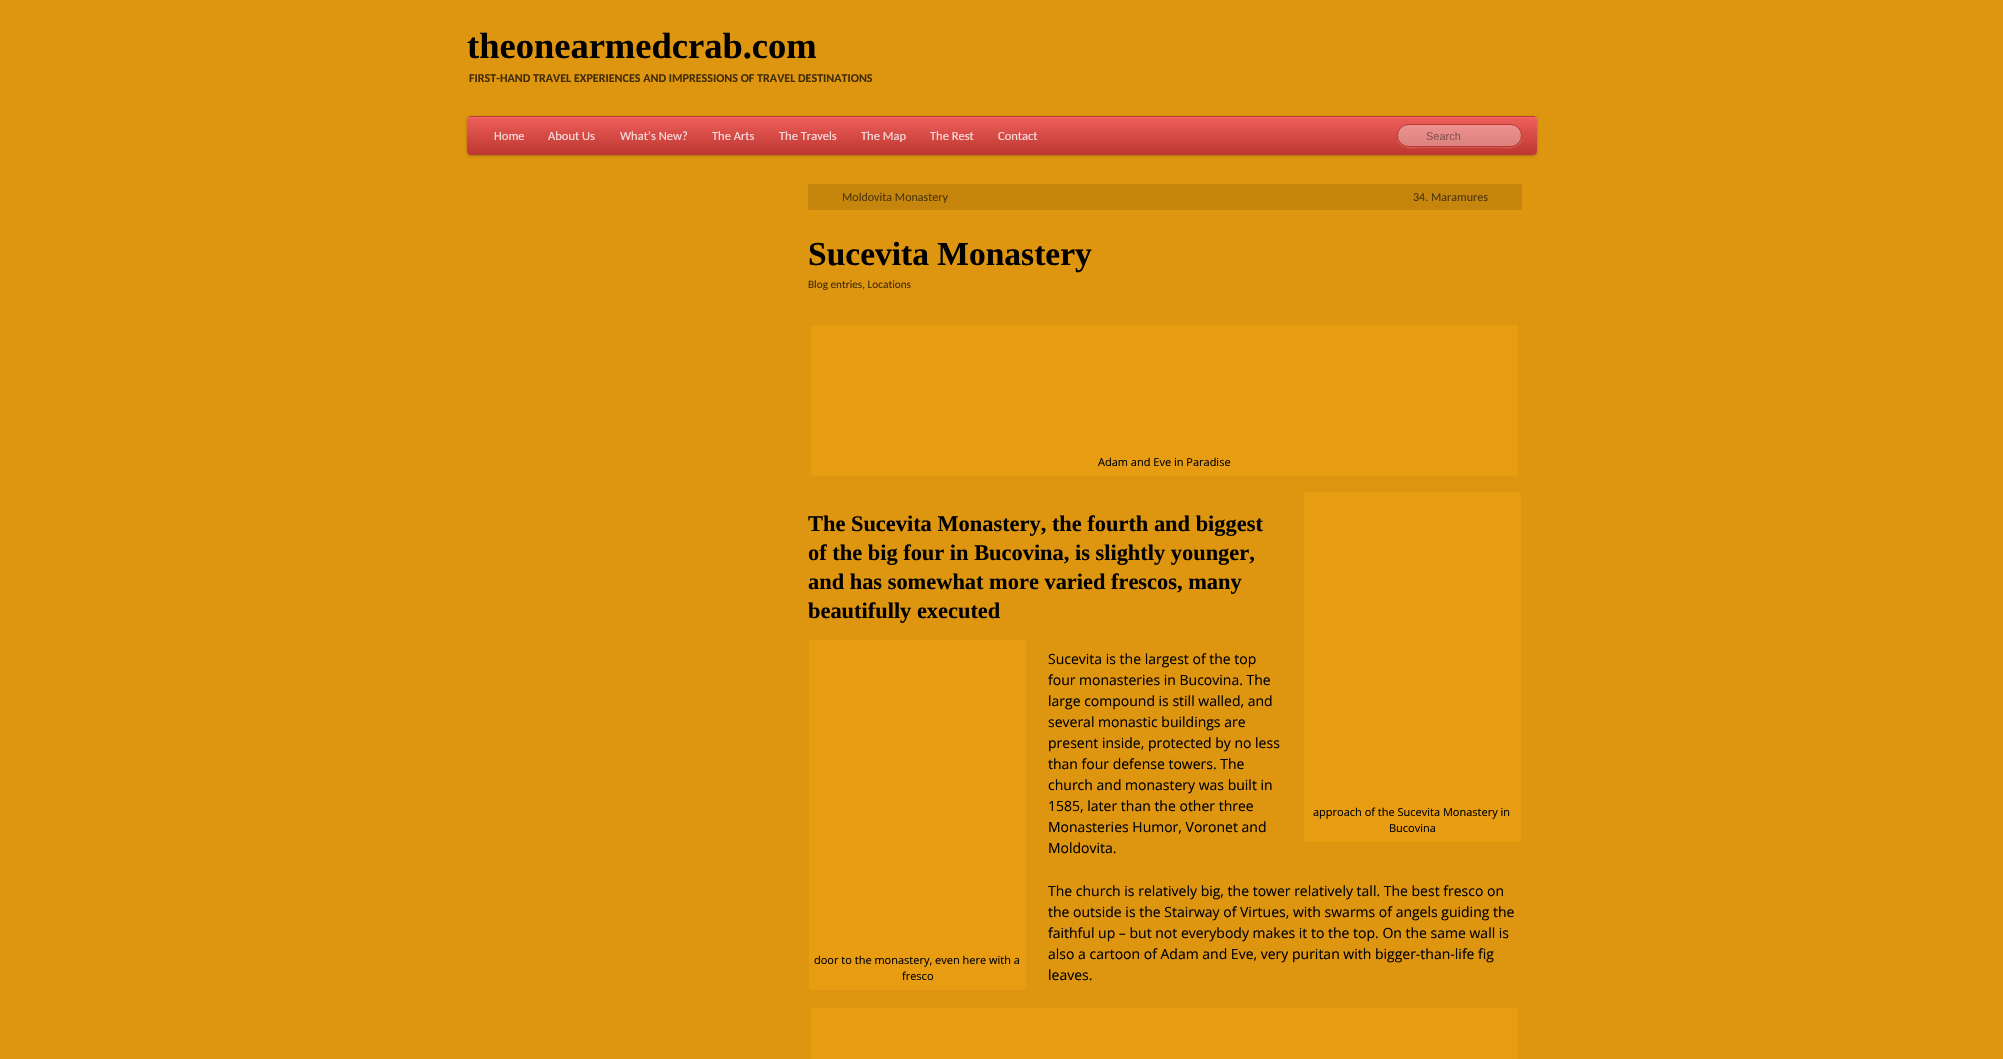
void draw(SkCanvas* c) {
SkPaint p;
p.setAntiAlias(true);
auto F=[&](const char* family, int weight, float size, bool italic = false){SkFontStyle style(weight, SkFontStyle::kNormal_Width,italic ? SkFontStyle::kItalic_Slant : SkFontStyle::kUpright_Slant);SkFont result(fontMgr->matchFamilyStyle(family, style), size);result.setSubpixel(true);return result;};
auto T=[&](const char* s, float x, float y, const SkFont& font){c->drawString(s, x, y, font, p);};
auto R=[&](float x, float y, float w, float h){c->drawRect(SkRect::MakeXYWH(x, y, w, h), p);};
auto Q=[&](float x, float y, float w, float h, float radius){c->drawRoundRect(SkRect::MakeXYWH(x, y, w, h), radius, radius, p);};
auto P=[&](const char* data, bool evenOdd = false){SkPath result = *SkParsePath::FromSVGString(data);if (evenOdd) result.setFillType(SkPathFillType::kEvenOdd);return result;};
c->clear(0xffde9610);
auto f1 = F("Liberation Serif",700,36.5);
p.setColor(0xff000000);
T("theonearmedcrab.com",467,58,f1);
auto f2 = F("Carlito",700,12.05);
p.setColor(0xff432d05);
T("FIRST-HAND TRAVEL EXPERIENCES AND IMPRESSIONS OF TRAVEL DESTINATIONS",469,82,f2);
p.setColor(0x40000000);
p.setMaskFilter(SkMaskFilter::MakeBlur(kNormal_SkBlurStyle, 1.5));
c->drawRoundRect(SkRect::MakeXYWH(467,117,1070,39),4,4,p);
p.setMaskFilter(nullptr);
p.setColor(0xffda4f49);
Q(467,116,1070,39,4);
c->save();
c->clipPath(P("M471 116h1062c2 0 4 2 4 4v31c0 2-2 4-4 4h-1062c-2 0-4-2-4-4v-31c0-2 2-4 4-4z"),true);
{
const SkColor colors[] = {0xffee5f5b,0xffbd362f};
const float stops[] = {0,1};
const SkPoint ends[] = {{1002,117}, {1002,155}};
p.setShader(SkGradientShader::MakeLinear(ends, colors, stops, 2, SkTileMode::kClamp));
p.setAlpha(255);
}
c->drawPath(P("M467 117h1070v34c0 2-2 4-4 4h-1062c-2 0-4-2-4-4z"),p);
c->restore();
p.setShader(nullptr);
p.setColor(0xffef6e6a);
c->drawPath(P("M471 118h1062c2 0 4 1 4 3v-1c0-2-2-3-4-3h-1062c-2 0-4 1-4 3v1c0-2 2-3 4-3z"),p);
p.setColor(0xffbd362f);
R(469,116,1066,1);
auto f3 = F("Carlito",400,12.5);
p.setColor(0xfff7dbda);
T("Home",494,140,f3);
T("About Us",548,140,f3);
T("What’s New?",620,140,f3);
T("The Arts",712,140,f3);
T("The Travels",779,140,f3);
T("The Map",861,140,f3);
T("The Rest",930,140,f3);
T("Contact",998,140,f3);
p.setColor(0x26ffffff);
c->drawPath(P("M1397 136c-1 16 20 12 29 12h68c8 0 29 4 28-12c0 6-5 11-12 11h-102c-6 0-11-5-11-11z"),p);
p.setColor(0x59ffffff);
c->drawRoundRect(SkRect::MakeXYWH(1397.5,124.5,124,22),11,11,p);
p.setStroke(true);
p.setStrokeWidth(1);
p.setColor(0xffbd362f);
c->drawRoundRect(SkRect::MakeXYWH(1397.5,124.5,124,22),11,11,p);
auto f4 = F("Liberation Sans",400,11);
p.setStroke(false);
p.setColor(0xff885250);
T("Search",1426,140,f4);
p.setColor(0xffc6860e);
R(808,184,714,26);
auto f5 = F("Carlito",400,12.05);
p.setColor(0xff4f3606);
T("Moldovita Monastery",842,201,f5);
T("34. Maramures",1413,201,f5);
auto f6 = F("Liberation Serif",700,33.5);
p.setColor(0xff000000);
T("Sucevita Monastery",808,265,f6);
auto f7 = F("Carlito",400,11.25);
p.setColor(0xff432d05);
T("Blog entries, Locations",808,288,f7);
p.setColor(0xffe89c11);
c->drawRoundRect(SkRect::MakeXYWH(810.5,324.5,708,152),2.5,2.5,p);
p.setStroke(true);
p.setColor(0xffde9610);
c->drawRoundRect(SkRect::MakeXYWH(810.5,324.5,708,152),2.5,2.5,p);
auto f8 = F("Open Sans",400,11);
p.setStroke(false);
p.setColor(0xff000000);
T("Adam and Eve in Paradise",1098,466,f8);
auto f9 = F("Liberation Serif",700,22.4);
T("The Sucevita Monastery, the fourth and biggest",808,531,f9);
T("of the big four in Bucovina, is slightly younger,",808,560,f9);
T("and has somewhat more varied frescos, many",808,589,f9);
T("beautifully executed",808,618,f9);
auto f10 = F("Open Sans",400,14);
T("Sucevita is the largest of the top",1048,664,f10);
T("four monasteries in Bucovina. The",1048,685,f10);
T("large compound is still walled, and",1048,706,f10);
T("several monastic buildings are",1048,727,f10);
T("present inside, protected by no less",1048,748,f10);
T("than four defense towers. The",1048,769,f10);
T("church and monastery was built in",1048,790,f10);
T("1585, later than the other three",1048,811,f10);
T("Monasteries Humor, Voronet and",1048,832,f10);
T("Moldovita.",1048,853,f10);
p.setColor(0xffe89c11);
c->drawRoundRect(SkRect::MakeXYWH(1303.5,491.5,218,351),2.5,2.5,p);
p.setStroke(true);
p.setColor(0xffde9610);
c->drawRoundRect(SkRect::MakeXYWH(1303.5,491.5,218,351),2.5,2.5,p);
p.setStroke(false);
p.setColor(0xff000000);
T("approach of the Sucevita Monastery in",1313,816,f8);
T("Bucovina",1389,832,f8);
p.setColor(0xffe89c11);
c->drawRoundRect(SkRect::MakeXYWH(808.5,639.5,218,351),2.5,2.5,p);
p.setStroke(true);
p.setColor(0xffde9610);
c->drawRoundRect(SkRect::MakeXYWH(808.5,639.5,218,351),2.5,2.5,p);
p.setStroke(false);
p.setColor(0xff000000);
T("door to the monastery, even here with a",814,964,f8);
T("fresco",902,980,f8);
T("The church is relatively big, the tower relatively tall. The best fresco on",1048,896,f10);
T("the outside is the Stairway of Virtues, with swarms of angels guiding the",1048,917,f10);
T("faithful up – but not everybody makes it to the top. On the same wall is",1048,938,f10);
T("also a cartoon of Adam and Eve, very puritan with bigger-than-life fig",1048,959,f10);
T("leaves.",1048,980,f10);
p.setColor(0xffe89c11);
c->drawRoundRect(SkRect::MakeXYWH(810.5,1007.5,708,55),2.5,2.5,p);
p.setStroke(true);
p.setColor(0xffde9610);
c->drawRoundRect(SkRect::MakeXYWH(810.5,1007.5,708,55),2.5,2.5,p);
}
